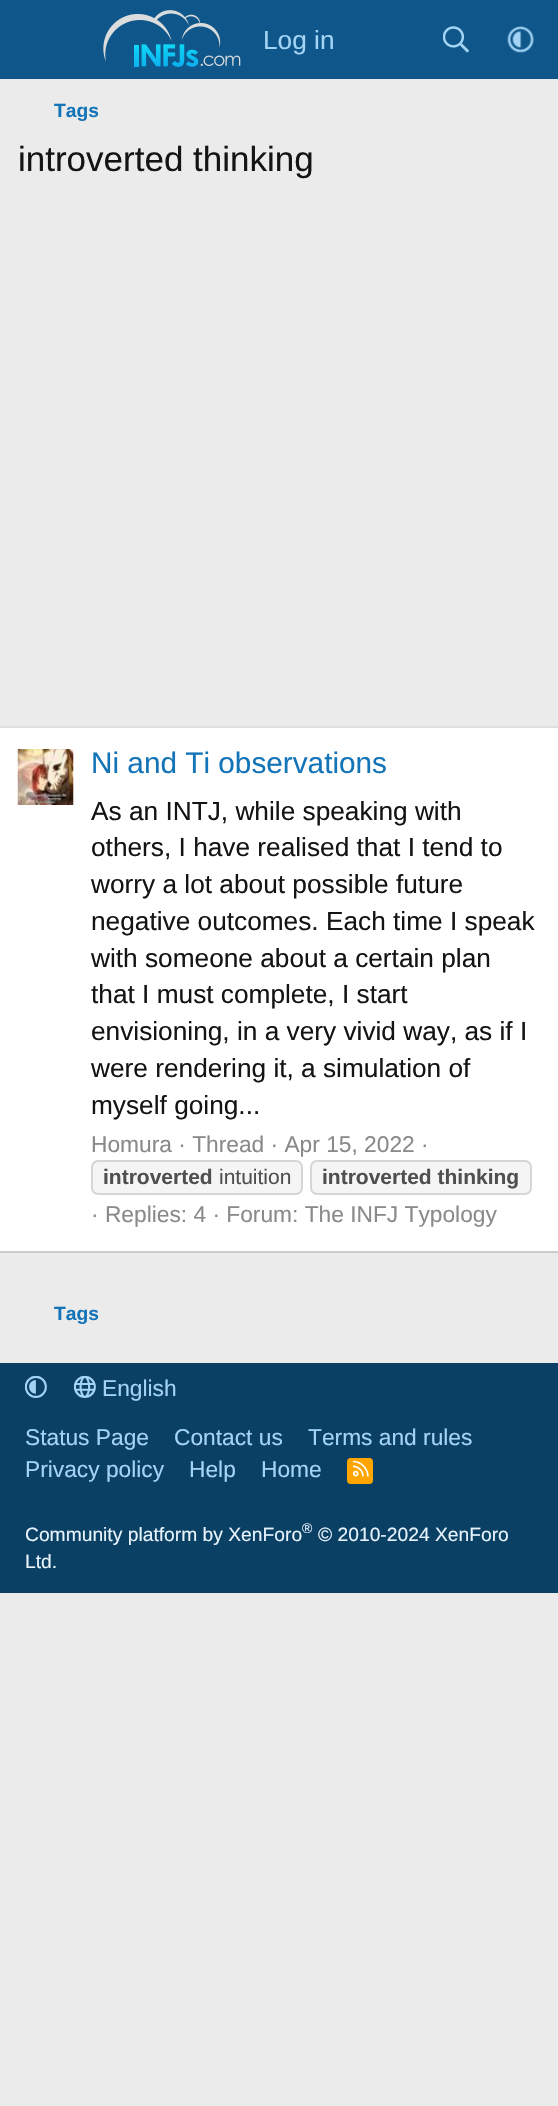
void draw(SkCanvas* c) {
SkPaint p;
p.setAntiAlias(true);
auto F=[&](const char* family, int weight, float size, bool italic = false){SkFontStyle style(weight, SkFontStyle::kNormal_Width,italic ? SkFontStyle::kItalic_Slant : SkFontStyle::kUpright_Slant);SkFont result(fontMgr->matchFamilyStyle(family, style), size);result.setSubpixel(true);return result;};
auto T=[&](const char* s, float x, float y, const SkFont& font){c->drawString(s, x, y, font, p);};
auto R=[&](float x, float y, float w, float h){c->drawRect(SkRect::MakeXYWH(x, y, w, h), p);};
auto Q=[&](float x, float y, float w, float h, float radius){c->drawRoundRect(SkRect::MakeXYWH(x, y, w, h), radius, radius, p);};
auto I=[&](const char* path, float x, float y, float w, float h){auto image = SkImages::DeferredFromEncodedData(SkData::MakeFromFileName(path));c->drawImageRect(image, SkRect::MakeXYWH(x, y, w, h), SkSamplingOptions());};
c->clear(0xffebebeb);
p.setColor(0xff0f578a);
R(0,0,558,79);
I("1.png",103,10,138,57);
auto f1 = F("Liberation Sans",400,26.25);
p.setColor(0xffa3d4f5);
T("Log in",263,49,f1);
I("2.png",443,26,26,27);
I("3.png",507,26,27,27);
auto f2 = F("Liberation Sans",700,19.25);
p.setColor(0xff1474b8);
T("Tags",54,117,f2);
auto f3 = F("Liberation Sans",400,35);
p.setColor(0xff141414);
T("introverted thinking",18,171,f3);
p.setColor(0xffffffff);
R(0,728,558,523);
p.setColor(0xffe0e0e0);
R(0,726,558,2);
p.setColor(0xffcccccc);
R(0,1251,558,2);
I("4.png",17,749,57,56);
auto f4 = F("Liberation Sans",400,29.75);
p.setColor(0xff1474b8);
T("Ni and Ti observations",91,773,f4);
p.setColor(0xff141414);
T("As an INTJ, while speaking with",91,820,f1);
T("others, I have realised that I tend to",91,856,f1);
T("worry a lot about possible future",91,893,f1);
T("negative outcomes. Each time I speak",91,930,f1);
T("with someone about a certain plan",91,967,f1);
T("that I must complete, I start",91,1003,f1);
T("envisioning, in a very vivid way, as if I",91,1040,f1);
T("were rendering it, a simulation of",91,1077,f1);
T("myself going...",91,1114,f1);
auto f5 = F("Liberation Sans",400,22.75);
p.setColor(0xff8a8a8a);
T("Homura · Thread · Apr 15, 2022 ·",91,1152,f5);
p.setColor(0xfff5f5f5);
c->drawRoundRect(SkRect::MakeXYWH(92,1161,210,33),6,6,p);
p.setStroke(true);
p.setStrokeWidth(2);
p.setColor(0xffd6d6d6);
c->drawRoundRect(SkRect::MakeXYWH(92,1161,210,33),6,6,p);
auto f6 = F("Liberation Sans",700,21);
p.setStroke(false);
p.setColor(0xff4f4f4f);
T("introverted",103,1184,f6);
auto f7 = F("Liberation Sans",400,21);
T("intuition",219,1184,f7);
p.setColor(0xfff5f5f5);
c->drawRoundRect(SkRect::MakeXYWH(311,1161,220,33),6,6,p);
p.setStroke(true);
p.setColor(0xffd6d6d6);
c->drawRoundRect(SkRect::MakeXYWH(311,1161,220,33),6,6,p);
p.setStroke(false);
p.setColor(0xff4f4f4f);
T("introverted thinking",322,1184,f6);
p.setColor(0xff8a8a8a);
T("· Replies: 4 · Forum: The INFJ Typology",91,1222,f5);
p.setColor(0xff1474b8);
T("Tags",54,1320,f2);
p.setColor(0xff0b4065);
R(0,1363,558,230);
I("5.png",24,1375,23,23);
I("6.png",73,1375,23,23);
p.setColor(0xffa3d4f5);
T("English",102,1396,f5);
T("Status Page",25,1445,f5);
T("Contact us",174,1445,f5);
T("Terms and rules",308,1445,f5);
T("Privacy policy",25,1477,f5);
T("Help",189,1477,f5);
T("Home",261,1477,f5);
p.setColor(0xffffa500);
Q(347,1458,26,26,4);
I("7.png",352,1460,17,17);
auto f8 = F("Liberation Sans",400,19.25);
p.setColor(0xffe8f4fc);
T("Community platform by XenForo",25,1541,f8);
auto f9 = F("Liberation Sans",400,14);
T("®",302,1533,f9);
T("© 2010-2024 XenForo",318,1541,f8);
T("Ltd.",25,1568,f8);
}
